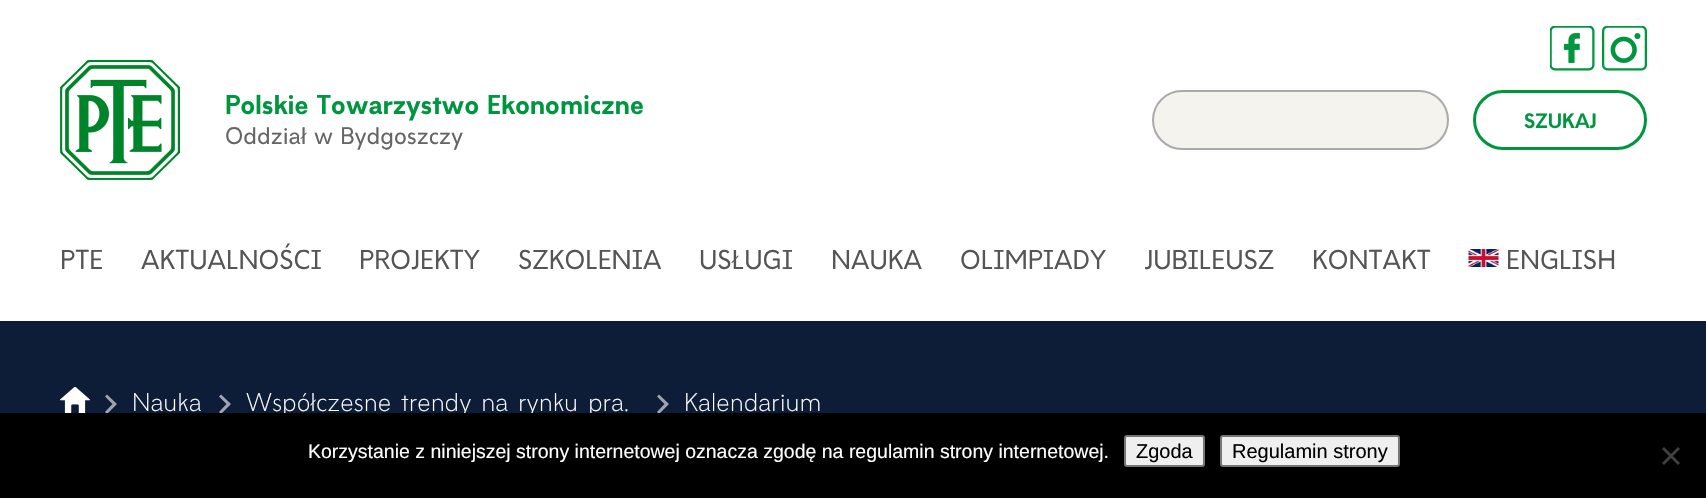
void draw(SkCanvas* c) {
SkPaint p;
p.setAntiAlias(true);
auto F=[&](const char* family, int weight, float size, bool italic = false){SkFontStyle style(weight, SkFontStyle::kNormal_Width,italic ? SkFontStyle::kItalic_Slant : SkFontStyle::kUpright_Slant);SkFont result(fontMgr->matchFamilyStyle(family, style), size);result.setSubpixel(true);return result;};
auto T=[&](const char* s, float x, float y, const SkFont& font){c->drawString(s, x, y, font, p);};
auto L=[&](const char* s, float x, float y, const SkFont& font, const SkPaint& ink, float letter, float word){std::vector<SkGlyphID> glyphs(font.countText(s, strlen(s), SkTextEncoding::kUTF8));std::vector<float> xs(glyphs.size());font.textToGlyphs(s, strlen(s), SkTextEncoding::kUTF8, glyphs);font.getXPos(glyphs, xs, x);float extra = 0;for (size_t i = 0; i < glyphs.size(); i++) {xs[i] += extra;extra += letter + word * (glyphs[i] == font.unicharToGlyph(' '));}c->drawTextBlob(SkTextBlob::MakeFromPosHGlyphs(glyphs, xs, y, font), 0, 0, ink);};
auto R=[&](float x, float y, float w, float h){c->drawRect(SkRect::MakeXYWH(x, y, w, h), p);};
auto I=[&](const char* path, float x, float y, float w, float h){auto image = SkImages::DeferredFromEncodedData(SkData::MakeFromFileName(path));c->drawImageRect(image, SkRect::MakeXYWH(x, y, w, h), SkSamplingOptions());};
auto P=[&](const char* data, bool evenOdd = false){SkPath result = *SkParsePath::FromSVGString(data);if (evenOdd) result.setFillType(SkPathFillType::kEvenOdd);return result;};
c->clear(0xffffffff);
I("1.png",1550,26,45,45);
I("2.png",1602,26,45,45);
I("3.png",60,60,120,120);
auto f1 = F("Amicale",600,25.5);
p.setColor(0xff009640);
T("Polskie Towarzystwo Ekonomiczne",225,114,f1);
auto f2 = F("Amicale",400,22.5);
p.setColor(0xff656565);
T("Oddział w Bydgoszczy",225,144,f2);
p.setColor(0xfff4f3ee);
c->drawRoundRect(SkRect::MakeXYWH(1153,91,295,58),29,29,p);
p.setStroke(true);
p.setStrokeWidth(2);
p.setColor(0xffaaaaaa);
c->drawRoundRect(SkRect::MakeXYWH(1153,91,295,58),29,29,p);
p.setStrokeWidth(3);
p.setColor(0xff009640);
c->drawRoundRect(SkRect::MakeXYWH(1474.5,91.5,171,57),28.5,28.5,p);
auto f3 = F("Amicale",600,19.5);
p.setStroke(false);
T("SZUKAJ",1524,128,f3);
auto f4 = F("Amicale",400,25.5);
p.setColor(0xff555555);
T("PTE",60,269,f4);
T("AKTUALNOŚCI",141,269,f4);
T("PROJEKTY",359,269,f4);
T("SZKOLENIA",518,269,f4);
T("USŁUGI",699,269,f4);
T("NAUKA",831,269,f4);
T("OLIMPIADY",960,269,f4);
T("JUBILEUSZ",1144,269,f4);
T("KONTAKT",1312,269,f4);
I("4.png",1468,249,31,18);
T("ENGLISH",1506,269,f4);
p.setColor(0xff0d1d38);
R(0,321,1706,92);
I("5.png",60,387,30,26);
p.setColor(0xff9ea5af);
c->drawPath(P("M117 404l-10-9.5l-2 2l7.5 7.5l-7.5 8l2 2z"),p);
auto f5 = F("Amicale",200,24);
p.setColor(0xffffffff);
T("Nauka",132,411,f5);
p.setColor(0xff9ea5af);
c->drawPath(P("M231 404l-10-9.5l-2 2l7.5 7.5l-7.5 8l2 2z"),p);
p.setColor(0xffffffff);
L("Współczesne trendy na rynku pra…",246,411,f5,p,0,2);
p.setColor(0xff9ea5af);
c->drawPath(P("M669 404l-10-9.5l-2 2l7.5 7.5l-7.5 8l2 2z"),p);
p.setColor(0xffffffff);
T("Kalendarium",684,411,f5);
p.setColor(0xff000000);
R(0,413,1706,85);
auto f6 = F("Liberation Sans",400,19.5);
p.setColor(0xffffffff);
T("Korzystanie z niniejszej strony internetowej oznacza zgodę na regulamin strony internetowej.",308,458,f6);
p.setColor(0xffefefef);
c->drawRoundRect(SkRect::MakeXYWH(1125,436,79,30),2,2,p);
p.setStroke(true);
p.setStrokeWidth(2);
p.setColor(0xff767676);
c->drawRoundRect(SkRect::MakeXYWH(1125,436,79,30),2,2,p);
auto f7 = F("Liberation Sans",400,20);
p.setStroke(false);
p.setColor(0xff000000);
T("Zgoda",1136,458,f7);
p.setColor(0xffefefef);
c->drawRoundRect(SkRect::MakeXYWH(1221,436,178,30),2,2,p);
p.setStroke(true);
p.setColor(0xff767676);
c->drawRoundRect(SkRect::MakeXYWH(1221,436,178,30),2,2,p);
p.setStroke(false);
p.setColor(0xff000000);
T("Regulamin strony",1232,458,f7);
p.setColor(0xff404040);
c->drawPath(P("M1678 447l2 2l-16 16l-2-2z"),p);
c->drawPath(P("M1662 449l2-2l16 16l-2 2z"),p);
}
